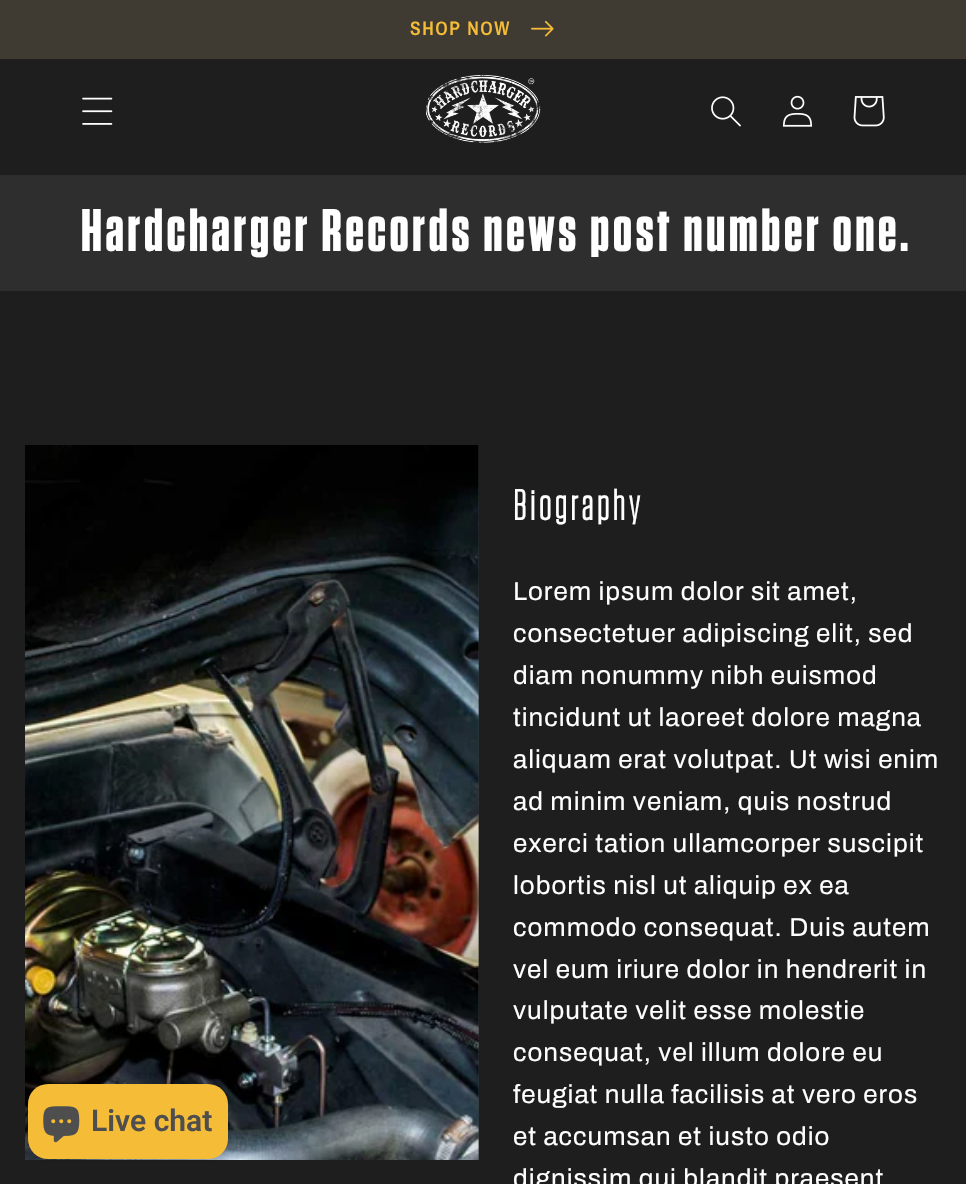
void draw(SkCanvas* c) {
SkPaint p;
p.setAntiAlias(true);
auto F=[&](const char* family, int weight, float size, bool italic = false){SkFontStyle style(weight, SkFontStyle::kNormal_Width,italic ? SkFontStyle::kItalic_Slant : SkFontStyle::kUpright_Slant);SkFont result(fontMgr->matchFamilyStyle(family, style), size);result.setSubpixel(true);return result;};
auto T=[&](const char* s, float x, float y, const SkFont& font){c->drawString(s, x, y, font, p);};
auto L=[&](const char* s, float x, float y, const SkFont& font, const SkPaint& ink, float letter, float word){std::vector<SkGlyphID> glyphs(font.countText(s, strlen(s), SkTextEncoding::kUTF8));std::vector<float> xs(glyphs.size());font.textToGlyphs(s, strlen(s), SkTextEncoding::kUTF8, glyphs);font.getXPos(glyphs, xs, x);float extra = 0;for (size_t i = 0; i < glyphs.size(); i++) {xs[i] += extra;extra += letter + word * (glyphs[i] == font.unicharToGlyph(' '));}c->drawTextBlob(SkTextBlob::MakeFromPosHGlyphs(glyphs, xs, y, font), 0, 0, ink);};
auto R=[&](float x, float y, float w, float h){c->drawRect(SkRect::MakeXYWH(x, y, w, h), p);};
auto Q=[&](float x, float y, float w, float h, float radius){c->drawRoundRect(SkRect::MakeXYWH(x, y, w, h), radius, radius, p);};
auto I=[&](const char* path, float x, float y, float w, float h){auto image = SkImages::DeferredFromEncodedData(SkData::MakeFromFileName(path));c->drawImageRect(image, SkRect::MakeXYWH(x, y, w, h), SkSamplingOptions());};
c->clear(0xff1e1e1e);
p.setColor(0xff423d32);
R(0,58,966,1);
p.setColor(0xff3f3a32);
R(0,0,966,58);
auto f1 = F("Archivo Narrow",600,19.5);
p.setColor(0xfff4bc37);
L("SHOP NOW",410,35,f1,p,1.5,0);
I("1.png",531,20,23,17);
I("2.png",82,97,31,28);
I("3.png",425,74,116,69);
I("4.png",711,96,30,31);
I("5.png",782,95,31,32);
I("6.png",853,96,32,31);
p.setColor(0xff2e2e2e);
R(0,175,966,116);
auto f2 = F("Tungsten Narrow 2",700,60);
p.setColor(0xffffffff);
L("Hardcharger Records news post number one.",81,251,f2,p,3.75,0);
p.setColor(0xff353535);
R(478,445,1,715);
I("7.png",25,445,454,715);
auto f3 = F("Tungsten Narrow",700,42.5);
p.setColor(0xffffffff);
L("Biography",513,520,f3,p,3.75,0);
auto f4 = F("Archivo",400,26);
L("Lorem ipsum dolor sit amet,",513,600,f4,p,1,0);
L("consectetuer adipiscing elit, sed",513,642,f4,p,1,0);
L("diam nonummy nibh euismod",513,684,f4,p,1,0);
L("tincidunt ut laoreet dolore magna",513,726,f4,p,1,0);
L("aliquam erat volutpat. Ut wisi enim",513,768,f4,p,1,0);
L("ad minim veniam, quis nostrud",513,810,f4,p,1,0);
L("exerci tation ullamcorper suscipit",513,852,f4,p,1,0);
L("lobortis nisl ut aliquip ex ea",513,894,f4,p,1,0);
L("commodo consequat. Duis autem",513,936,f4,p,1,0);
L("vel eum iriure dolor in hendrerit in",513,978,f4,p,1,0);
L("vulputate velit esse molestie",513,1019,f4,p,1,0);
L("consequat, vel illum dolore eu",513,1061,f4,p,1,0);
L("feugiat nulla facilisis at vero eros",513,1103,f4,p,1,0);
L("et accumsan et iusto odio",513,1145,f4,p,1,0);
L("dignissim qui blandit praesent",513,1187,f4,p,1,0);
p.setColor(0x26000000);
p.setMaskFilter(SkMaskFilter::MakeBlur(kNormal_SkBlurStyle, 3));
c->drawRoundRect(SkRect::MakeXYWH(28,1084,200,75),20,20,p);
p.setMaskFilter(nullptr);
p.setColor(0xfff4bc37);
Q(28,1084,200,75,20);
I("8.png",43,1106,37,37);
auto f5 = F("Roboto",600,30);
p.setColor(0xff4e4e4e);
T("Live chat",91,1131,f5);
}
